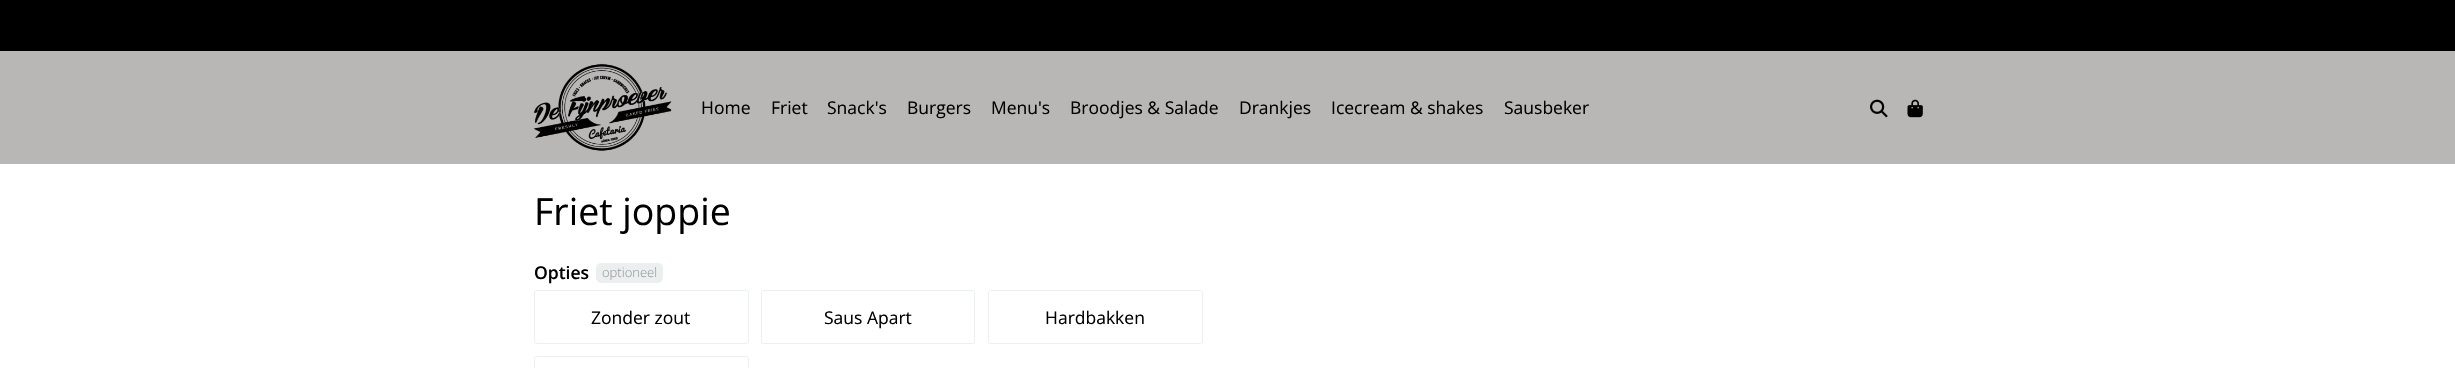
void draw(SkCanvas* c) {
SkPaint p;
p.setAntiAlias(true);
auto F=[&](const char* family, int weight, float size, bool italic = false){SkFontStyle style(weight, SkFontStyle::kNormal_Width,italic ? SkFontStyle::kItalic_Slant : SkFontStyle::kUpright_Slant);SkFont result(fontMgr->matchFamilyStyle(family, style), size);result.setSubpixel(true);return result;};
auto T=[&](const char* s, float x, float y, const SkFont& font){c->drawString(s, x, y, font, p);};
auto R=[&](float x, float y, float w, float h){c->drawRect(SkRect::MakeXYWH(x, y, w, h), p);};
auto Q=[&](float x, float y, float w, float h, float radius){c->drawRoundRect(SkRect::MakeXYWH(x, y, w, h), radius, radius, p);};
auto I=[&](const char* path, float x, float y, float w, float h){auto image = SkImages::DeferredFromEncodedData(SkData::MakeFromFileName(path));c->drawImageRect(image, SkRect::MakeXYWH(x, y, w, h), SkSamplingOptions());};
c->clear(0xffffffff);
p.setColor(0xff000000);
R(0,0,2455,51);
p.setColor(0xffb9b6b6);
R(0,51,2455,113);
I("1.png",533,63,139,88);
auto f1 = F("Open Sans",400,17.5);
p.setColor(0xff000000);
T("Home",701,114,f1);
T("Friet",771,114,f1);
T("Snack's",827,114,f1);
T("Burgers",907,114,f1);
T("Menu's",991,114,f1);
T("Broodjes & Salade",1070,114,f1);
T("Drankjes",1239,114,f1);
T("Icecream & shakes",1331,114,f1);
T("Sausbeker",1504,114,f1);
I("2.png",1870,99,18,19);
I("3.png",1907,99,16,19);
auto f2 = F("Open Sans",400,37.5);
T("Friet joppie",534,225,f2);
auto f3 = F("Open Sans",600,17.5);
T("Opties",534,279,f3);
p.setColor(0xffeceff0);
Q(596,263,67,20,5);
auto f4 = F("Open Sans",300,13);
p.setColor(0xff999999);
T("optioneel",602,277,f4);
p.setStroke(true);
p.setStrokeWidth(1);
p.setColor(0xffeceff0);
c->drawRoundRect(SkRect::MakeXYWH(534.5,290.5,214,53),2,2,p);
p.setStroke(false);
p.setColor(0xff000000);
T("Zonder zout",591,324,f1);
p.setStroke(true);
p.setColor(0xffeceff0);
c->drawRoundRect(SkRect::MakeXYWH(761.5,290.5,213,53),2,2,p);
p.setStroke(false);
p.setColor(0xff000000);
T("Saus Apart",824,324,f1);
p.setStroke(true);
p.setColor(0xffeceff0);
c->drawRoundRect(SkRect::MakeXYWH(988.5,290.5,214,53),2,2,p);
p.setStroke(false);
p.setColor(0xff000000);
T("Hardbakken",1045,324,f1);
p.setStroke(true);
p.setColor(0xffeceff0);
c->drawRoundRect(SkRect::MakeXYWH(534.5,356.5,214,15),2,2,p);
}
